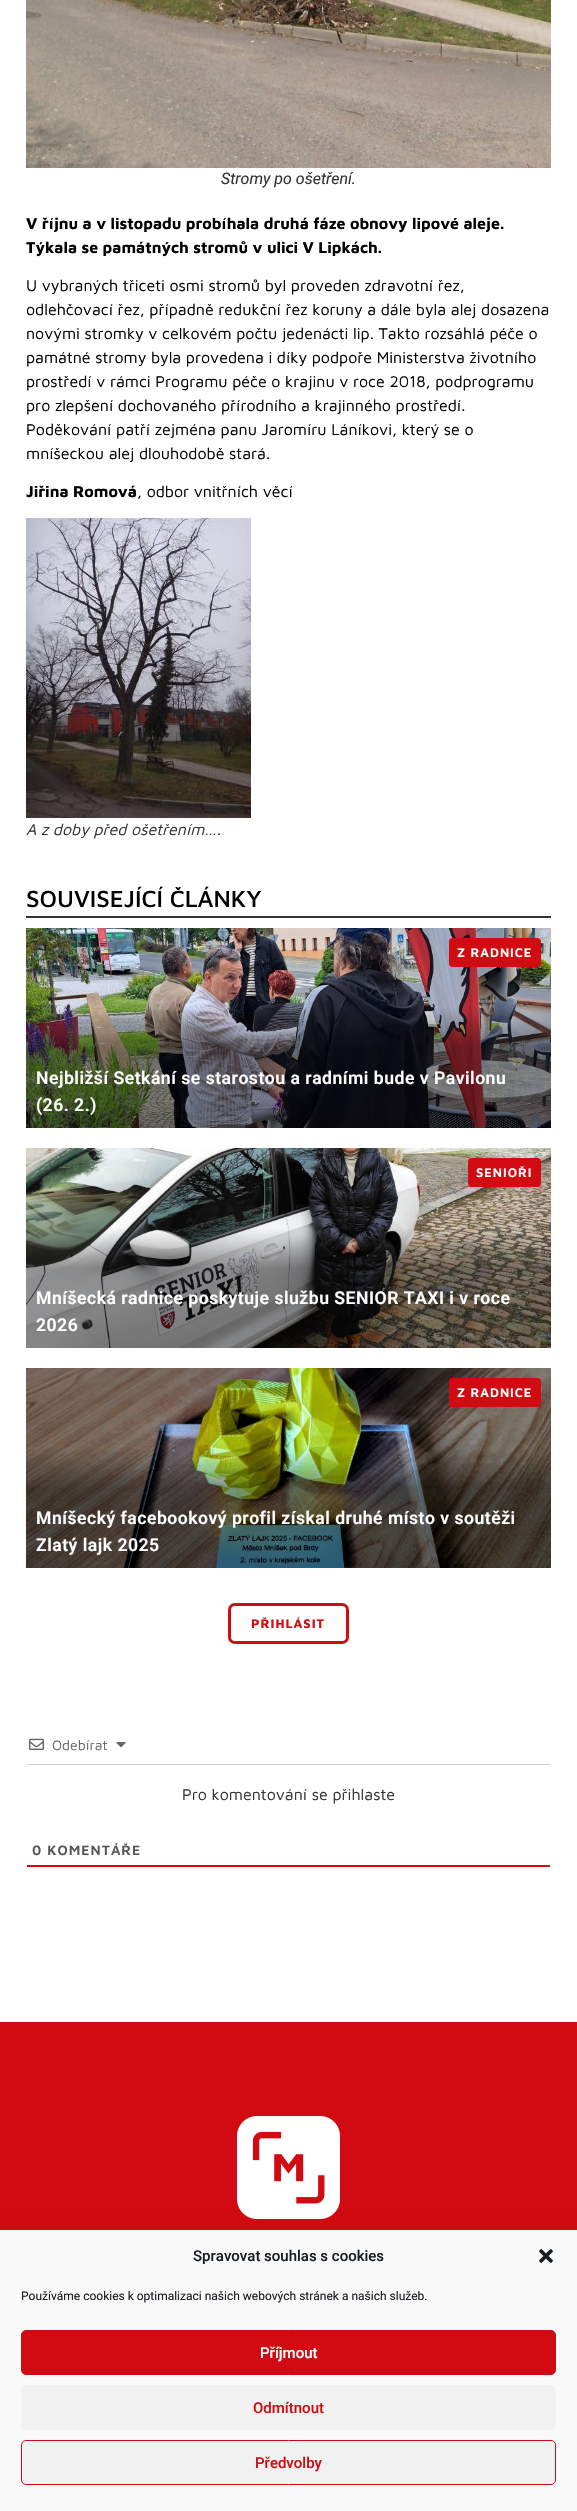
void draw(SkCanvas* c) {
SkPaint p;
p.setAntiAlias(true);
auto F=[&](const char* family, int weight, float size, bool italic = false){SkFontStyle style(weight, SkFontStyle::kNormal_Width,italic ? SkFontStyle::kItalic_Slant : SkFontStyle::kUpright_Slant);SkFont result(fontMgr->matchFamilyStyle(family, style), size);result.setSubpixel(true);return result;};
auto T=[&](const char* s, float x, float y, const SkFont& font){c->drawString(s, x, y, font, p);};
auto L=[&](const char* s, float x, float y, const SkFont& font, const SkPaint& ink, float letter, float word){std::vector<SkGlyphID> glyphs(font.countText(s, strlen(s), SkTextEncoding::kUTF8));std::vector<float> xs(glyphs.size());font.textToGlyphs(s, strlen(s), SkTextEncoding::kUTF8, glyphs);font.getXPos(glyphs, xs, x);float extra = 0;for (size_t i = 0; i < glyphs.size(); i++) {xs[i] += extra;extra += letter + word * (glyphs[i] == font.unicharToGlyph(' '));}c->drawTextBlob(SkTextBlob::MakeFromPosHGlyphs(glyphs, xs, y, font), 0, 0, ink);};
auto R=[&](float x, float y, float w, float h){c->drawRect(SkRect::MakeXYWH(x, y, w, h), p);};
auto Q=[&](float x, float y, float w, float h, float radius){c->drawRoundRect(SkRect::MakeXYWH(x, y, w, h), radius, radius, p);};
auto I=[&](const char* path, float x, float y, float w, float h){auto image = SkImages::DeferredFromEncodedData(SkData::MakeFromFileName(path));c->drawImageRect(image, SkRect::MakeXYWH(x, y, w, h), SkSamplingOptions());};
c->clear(0xffffffff);
I("1.png",26,0,525,168);
auto f1 = F("Roboto",400,16,true);
p.setColor(0xff333333);
T("Stromy po ošetření.",221,184,f1);
auto f2 = F("Maven Pro",700,16);
p.setColor(0xff000000);
T("V říjnu a v listopadu probíhala druhá fáze obnovy lipové aleje.",26,229,f2);
T("Týkala se památných stromů v ulici V Lipkách.",26,253,f2);
auto f3 = F("Maven Pro",400,16);
T("U vybraných třiceti osmi stromů byl proveden zdravotní řez,",26,291,f3);
T("odlehčovací řez, případně redukční řez koruny a dále byla alej dosazena",26,315,f3);
T("novými stromky v celkovém počtu jedenácti lip. Takto rozsáhlá péče o",26,339,f3);
T("památné stromy byla provedena i díky podpoře Ministerstva životního",26,363,f3);
T("prostředí v rámci Programu péče o krajinu v roce 2018, podprogramu",26,387,f3);
T("pro zlepšení dochovaného přírodního a krajinného prostředí.",26,411,f3);
T("Poděkování patří zejména panu Jaromíru Láníkovi, který se o",26,435,f3);
T("mníšeckou alej dlouhodobě stará.",26,459,f3);
T("Jiřina Romová",26,497,f2);
T(", odbor vnitřních věcí",137,497,f3);
I("2.png",26,518,225,300);
auto f4 = F("Maven Pro",400,16,true);
p.setColor(0xff333333);
T("A z doby před ošetřením….",26,835,f4);
R(26,916,525,2);
auto f5 = F("Maven Pro",500,24);
p.setColor(0xff000000);
T("SOUVISEJÍCÍ ČLÁNKY",26,907,f5);
I("3.png",26,928,525,200);
p.setColor(0xffd20a11);
Q(449,938,92,29,4);
auto f6 = F("Maven Pro",600,12.75);
p.setColor(0xffffffff);
L("Z RADNICE",457,957,f6,p,1,0);
auto f7 = F("Roboto",600,17.6);
L("Nejbližší Setkání se starostou a radními bude v Pavilonu",36,1084,f7,p,.5,0);
L("(26. 2.)",36,1111,f7,p,.5,0);
I("4.png",26,1148,525,200);
p.setColor(0xffd20a11);
Q(468,1158,73,29,4);
p.setColor(0xffffffff);
L("SENIOŘI",476,1177,f6,p,1,0);
L("Mníšecká radnice poskytuje službu SENIOR TAXI i v roce",36,1304,f7,p,.5,0);
L("2026",36,1331,f7,p,.5,0);
I("5.png",26,1368,525,200);
p.setColor(0xffd20a11);
Q(449,1378,92,29,4);
p.setColor(0xffffffff);
L("Z RADNICE",457,1397,f6,p,1,0);
L("Mníšecký facebookový profil získal druhé místo v soutěži",36,1524,f7,p,.5,0);
L("Zlatý lajk 2025",36,1551,f7,p,.5,0);
p.setStroke(true);
p.setStrokeWidth(3);
p.setColor(0xffd20a11);
c->drawRoundRect(SkRect::MakeXYWH(229.5,1604.5,118,38),5.5,5.5,p);
auto f8 = F("Maven Pro",700,12.75);
p.setStroke(false);
L("PŘIHLÁSIT",251,1628,f8,p,1,0);
p.setColor(0xffcccccc);
R(27,1764,523,1);
I("6.png",29,1738,15,12);
auto f9 = F("Maven Pro",400,14);
p.setColor(0xff666666);
T("Odebírat",52,1750,f9);
I("7.png",116,1742,10,6);
p.setColor(0xff333333);
T("Pro komentování se přihlaste",182,1800,f3);
p.setColor(0xffd20a11);
R(27,1865,523,2);
auto f10 = F("Maven Pro",600,14);
p.setColor(0xff555555);
L("0 KOMENTÁŘE",32,1855,f10,p,1,0);
p.setColor(0xffd20a11);
R(0,2022,577,208);
I("8.png",237,2116,103,103);
p.setColor(0x30000000);
p.setMaskFilter(SkMaskFilter::MakeBlur(kNormal_SkBlurStyle, 10));
c->drawRect(SkRect::MakeXYWH(0,2240,577,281),p);
p.setMaskFilter(nullptr);
p.setColor(0xfff9f9f9);
R(1,2231,575,279);
R(576,2230,1,281);
R(0,2510,577,1);
R(0,2230,1,281);
auto f11 = F("Roboto",500,15);
p.setColor(0xff191e23);
T("Spravovat souhlas s cookies",193,2261,f11);
I("9.png",539,2249,14,14);
auto f12 = F("Roboto",400,12);
T("Používáme cookies k optimalizaci našich webových stránek a našich služeb.",21,2300,f12);
p.setColor(0xffd20a11);
c->drawRoundRect(SkRect::MakeXYWH(21.5,2330.5,534,44),4.5,4.5,p);
p.setStroke(true);
p.setStrokeWidth(1);
c->drawRoundRect(SkRect::MakeXYWH(21.5,2330.5,534,44),4.5,4.5,p);
p.setStroke(false);
p.setColor(0xffffffff);
T("Příjmout",260,2358,f11);
p.setColor(0xfff1f1f1);
Q(21,2385,535,45,5);
p.setColor(0xffd20a11);
T("Odmítnout",253,2413,f11);
p.setColor(0xfff1f1f1);
c->drawRoundRect(SkRect::MakeXYWH(21.5,2440.5,534,44),4.5,4.5,p);
p.setStroke(true);
p.setColor(0xffd20a11);
c->drawRoundRect(SkRect::MakeXYWH(21.5,2440.5,534,44),4.5,4.5,p);
p.setStroke(false);
T("Předvolby",255,2468,f11);
}
